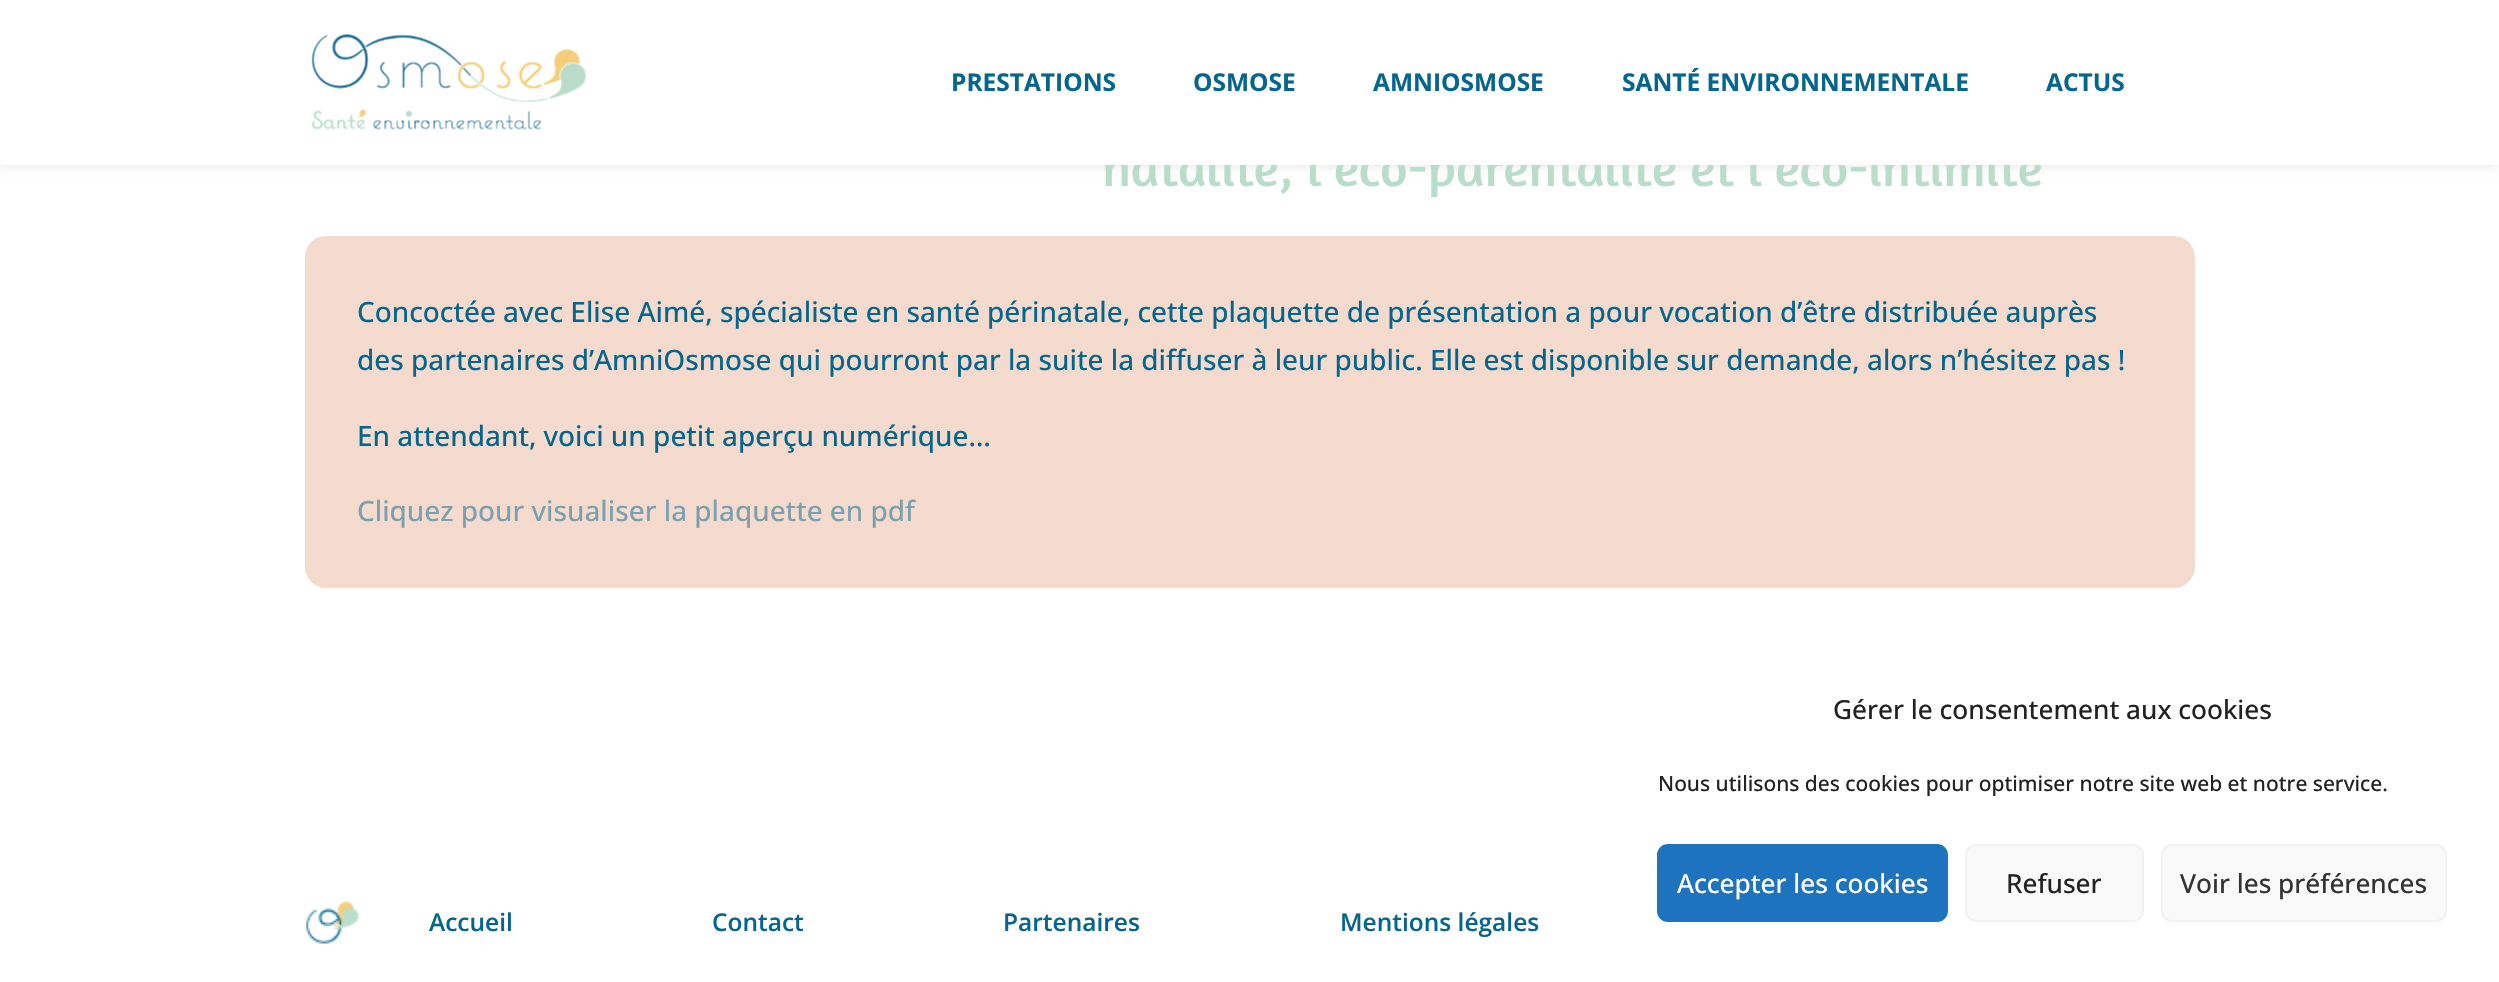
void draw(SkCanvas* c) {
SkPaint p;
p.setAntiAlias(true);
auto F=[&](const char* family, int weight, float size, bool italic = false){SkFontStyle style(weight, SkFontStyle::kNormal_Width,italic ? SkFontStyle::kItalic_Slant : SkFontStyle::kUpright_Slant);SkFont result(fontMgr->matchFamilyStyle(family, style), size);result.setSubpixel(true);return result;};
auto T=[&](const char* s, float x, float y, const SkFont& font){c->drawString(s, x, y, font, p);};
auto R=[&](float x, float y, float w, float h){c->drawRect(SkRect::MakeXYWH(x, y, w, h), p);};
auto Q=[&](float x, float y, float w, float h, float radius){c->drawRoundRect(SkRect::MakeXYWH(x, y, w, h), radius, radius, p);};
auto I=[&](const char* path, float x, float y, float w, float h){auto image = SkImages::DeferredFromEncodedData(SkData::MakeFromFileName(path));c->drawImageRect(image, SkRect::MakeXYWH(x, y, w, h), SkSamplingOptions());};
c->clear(0xffffffff);
p.setColor(0x1a000000);
p.setMaskFilter(SkMaskFilter::MakeBlur(kNormal_SkBlurStyle, 6));
c->drawRect(SkRect::MakeXYWH(0,0,2499,165),p);
p.setMaskFilter(nullptr);
auto f1 = F("Amaranth",400,52.5);
p.setColor(0xffbaddcb);
T("natalité, l’éco-parentalité et l’éco-intimité",1102,186,f1);
p.setColor(0xffffffff);
R(0,0,2499,165);
I("1.png",311,34,276,96);
auto f2 = F("Open Sans",700,24.5);
p.setColor(0xff05658d);
T("PRESTATIONS",951,91,f2);
T("OSMOSE",1193,91,f2);
T("AMNIOSMOSE",1373,91,f2);
T("SANTÉ ENVIRONNEMENTALE",1622,91,f2);
T("ACTUS",2046,91,f2);
p.setColor(0xfff5dbce);
Q(305,236,1890,352,21);
auto f3 = F("Open Sans",500,28);
p.setColor(0xff05658d);
T("Concoctée avec Elise Aimé, spécialiste en santé périnatale, cette plaquette de présentation a pour vocation d’être distribuée auprès",357,322,f3);
T("des partenaires d’AmniOsmose qui pourront par la suite la diffuser à leur public. Elle est disponible sur demande, alors n’hésitez pas !",357,370,f3);
T("En attendant, voici un petit aperçu numérique…",357,446,f3);
p.setColor(0xff7da0ae);
T("Cliquez pour visualiser la plaquette en pdf",357,521,f3);
I("2.png",305,901,55,43);
auto f4 = F("Open Sans",600,24.5);
p.setColor(0xff05658d);
T("Accueil",429,931,f4);
T("Contact",712,931,f4);
T("Partenaires",1003,931,f4);
T("Mentions légales",1340,931,f4);
auto f5 = F("Open Sans",500,26.25);
p.setColor(0xff222222);
T("Gérer le consentement aux cookies",1833,719,f5);
auto f6 = F("Open Sans",500,21);
T("Nous utilisons des cookies pour optimiser notre site web et notre service.",1658,791,f6);
p.setColor(0xff1e73be);
c->drawRoundRect(SkRect::MakeXYWH(1658,845,289,76),10,10,p);
p.setStroke(true);
p.setStrokeWidth(2);
c->drawRoundRect(SkRect::MakeXYWH(1658,845,289,76),10,10,p);
p.setStroke(false);
p.setColor(0xffffffff);
T("Accepter les cookies",1677,893,f5);
p.setColor(0xfff9f9f9);
c->drawRoundRect(SkRect::MakeXYWH(1966,845,177,76),10,10,p);
p.setStroke(true);
p.setColor(0xfff2f2f2);
c->drawRoundRect(SkRect::MakeXYWH(1966,845,177,76),10,10,p);
p.setStroke(false);
p.setColor(0xff222222);
T("Refuser",2006,893,f5);
p.setColor(0xfff9f9f9);
c->drawRoundRect(SkRect::MakeXYWH(2162,845,284,76),10,10,p);
p.setStroke(true);
p.setColor(0xfff2f2f2);
c->drawRoundRect(SkRect::MakeXYWH(2162,845,284,76),10,10,p);
p.setStroke(false);
p.setColor(0xff333333);
T("Voir les préférences",2180,893,f5);
}
